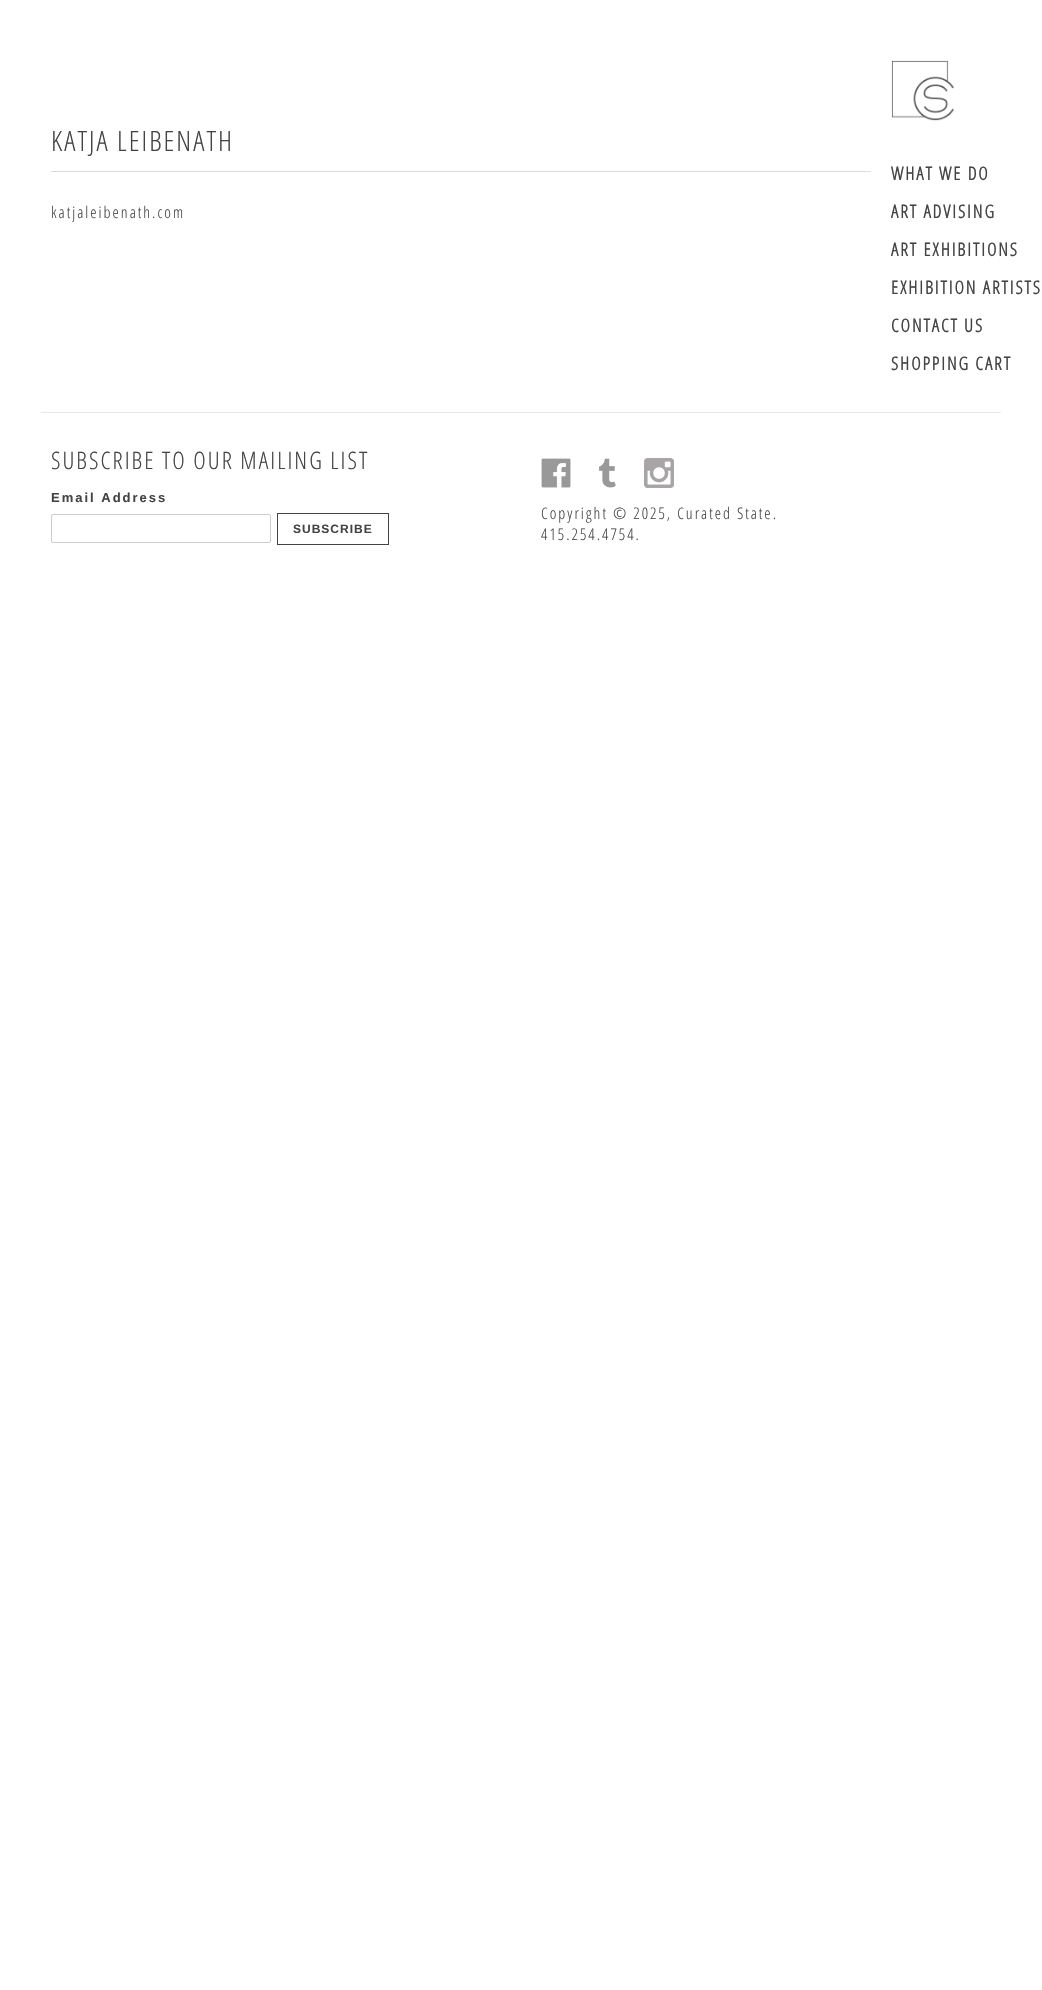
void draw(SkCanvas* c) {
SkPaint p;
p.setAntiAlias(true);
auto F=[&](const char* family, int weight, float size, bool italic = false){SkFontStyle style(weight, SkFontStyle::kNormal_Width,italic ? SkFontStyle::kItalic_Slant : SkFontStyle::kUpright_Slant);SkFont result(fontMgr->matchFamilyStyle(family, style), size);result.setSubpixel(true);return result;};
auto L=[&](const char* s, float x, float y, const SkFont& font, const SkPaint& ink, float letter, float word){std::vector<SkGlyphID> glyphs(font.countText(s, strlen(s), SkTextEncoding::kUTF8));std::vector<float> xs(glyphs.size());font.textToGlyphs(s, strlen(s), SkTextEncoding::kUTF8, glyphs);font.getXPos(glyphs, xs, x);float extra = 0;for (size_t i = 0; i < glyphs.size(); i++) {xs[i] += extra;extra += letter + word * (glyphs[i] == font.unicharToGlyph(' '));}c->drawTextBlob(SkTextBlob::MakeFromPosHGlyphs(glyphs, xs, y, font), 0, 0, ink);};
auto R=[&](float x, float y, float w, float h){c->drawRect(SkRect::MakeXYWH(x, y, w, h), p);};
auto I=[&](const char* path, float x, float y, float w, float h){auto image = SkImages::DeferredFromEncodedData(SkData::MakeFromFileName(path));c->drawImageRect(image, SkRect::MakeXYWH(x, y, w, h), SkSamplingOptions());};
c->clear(0xffffffff);
I("1.png",891,60,64,61);
auto f1 = F("Open Sans Condensed",300,28);
p.setColor(0xff444444);
L("KATJA LEIBENATH",51,151,f1,p,2,0);
p.setColor(0xffdddddd);
R(51,171,820,1);
auto f2 = F("Open Sans Condensed",300,16);
p.setColor(0xff444444);
L("katjaleibenath.com",51,218,f2,p,2,0);
auto f3 = F("Open Sans Condensed",700,18);
L("WHAT WE DO",891,180,f3,p,2,0);
L("ART ADVISING",891,218,f3,p,2,0);
L("ART EXHIBITIONS",891,256,f3,p,2,0);
L("EXHIBITION ARTISTS",891,294,f3,p,2,0);
L("CONTACT US",891,332,f3,p,2,0);
L("SHOPPING CART",891,370,f3,p,2,0);
p.setColor(0xffe8e8e8);
R(41,412,960,1);
auto f4 = F("Open Sans Condensed",300,24);
p.setColor(0xff444444);
L("SUBSCRIBE TO OUR MAILING LIST",51,469,f4,p,2,0);
auto f5 = F("Liberation Sans",700,13);
L("Email Address",51,502,f5,p,2,0);
p.setStroke(true);
p.setStrokeWidth(1);
p.setColor(0xffcccccc);
c->drawRoundRect(SkRect::MakeXYWH(51.5,514.5,219,28),1.5,1.5,p);
p.setColor(0xff444444);
c->drawRect(SkRect::MakeXYWH(277.5,513.5,111,31),p);
auto f6 = F("Liberation Sans",700,12);
p.setStroke(false);
L("SUBSCRIBE",293,533,f6,p,1,0);
I("2.png",541,458,30,30);
I("3.png",599,458,17,30);
I("4.png",644,458,30,30);
L("Copyright © 2025, Curated State.",541,519,f2,p,2,0);
L("415.254.4754.",541,540,f2,p,2,0);
}
